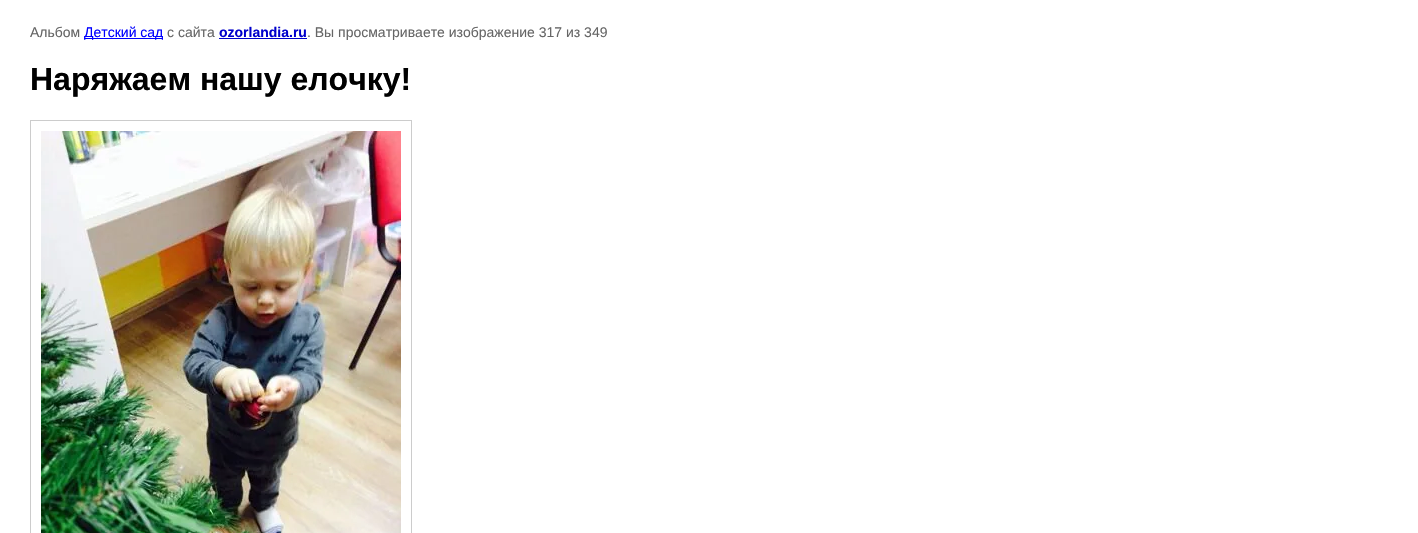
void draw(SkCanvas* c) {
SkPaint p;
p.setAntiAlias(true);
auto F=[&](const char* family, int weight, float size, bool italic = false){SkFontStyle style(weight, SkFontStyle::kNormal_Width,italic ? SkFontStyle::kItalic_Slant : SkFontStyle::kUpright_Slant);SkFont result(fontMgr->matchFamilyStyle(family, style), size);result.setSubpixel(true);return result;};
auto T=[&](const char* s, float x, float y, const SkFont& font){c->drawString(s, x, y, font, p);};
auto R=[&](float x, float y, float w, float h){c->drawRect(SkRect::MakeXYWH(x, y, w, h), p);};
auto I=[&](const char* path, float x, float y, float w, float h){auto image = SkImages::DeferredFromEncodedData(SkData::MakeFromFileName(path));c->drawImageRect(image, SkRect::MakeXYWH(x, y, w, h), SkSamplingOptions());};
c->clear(0xffffffff);
auto f1 = F("Liberation Sans",400,14);
p.setColor(0xff666666);
T("Альбом",30,37,f1);
p.setColor(0xff0000ff);
R(84,38,79,1);
T("Детский сад",84,37,f1);
p.setColor(0xff666666);
T("с сайта",167,37,f1);
auto f2 = F("Liberation Sans",700,14);
p.setColor(0xff0000cc);
T("ozorlandia.ru",219,37,f2);
R(219,38,88,1);
p.setColor(0xff666666);
T(". Вы просматриваете изображение 317 из 349",307,37,f1);
auto f3 = F("Liberation Sans",700,32);
p.setColor(0xff000000);
T("Наряжаем нашу елочку!",30,90,f3);
p.setStroke(true);
p.setStrokeWidth(1);
p.setColor(0xffcccccc);
c->drawRect(SkRect::MakeXYWH(30.5,120.5,381,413),p);
I("1.png",41,131,360,402);
}
